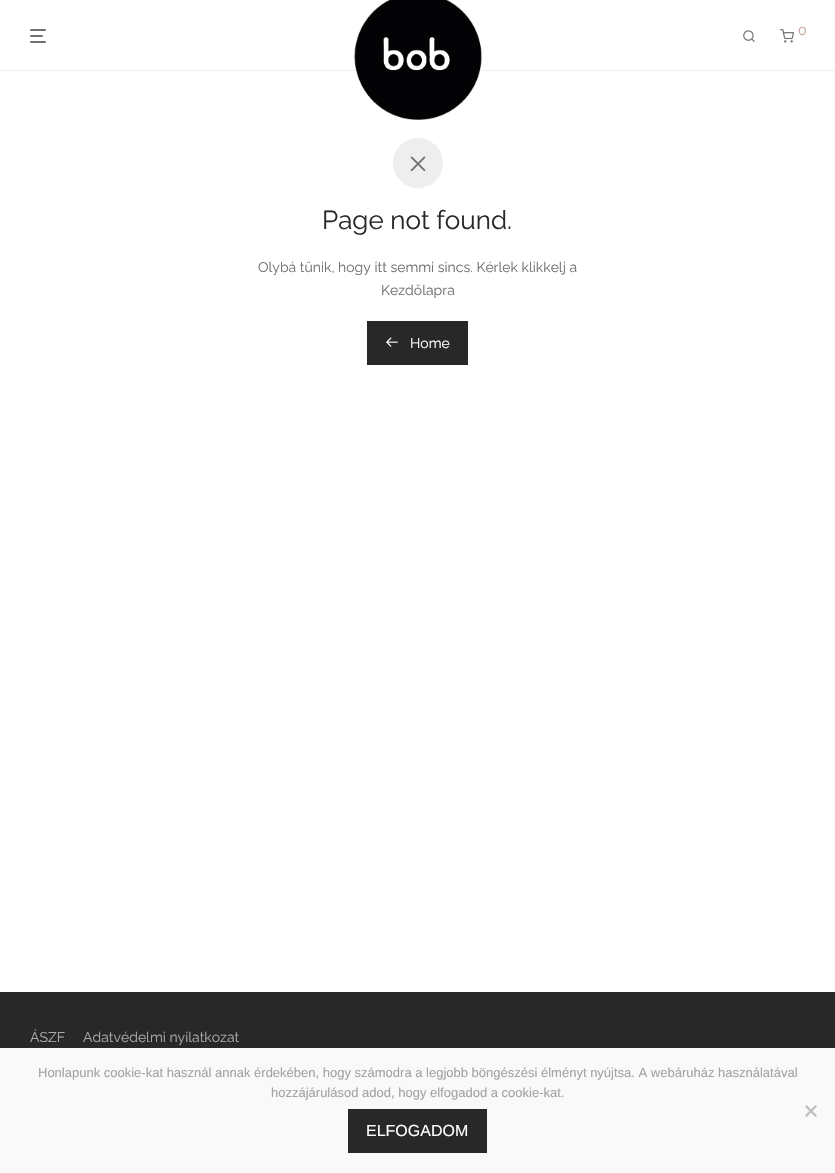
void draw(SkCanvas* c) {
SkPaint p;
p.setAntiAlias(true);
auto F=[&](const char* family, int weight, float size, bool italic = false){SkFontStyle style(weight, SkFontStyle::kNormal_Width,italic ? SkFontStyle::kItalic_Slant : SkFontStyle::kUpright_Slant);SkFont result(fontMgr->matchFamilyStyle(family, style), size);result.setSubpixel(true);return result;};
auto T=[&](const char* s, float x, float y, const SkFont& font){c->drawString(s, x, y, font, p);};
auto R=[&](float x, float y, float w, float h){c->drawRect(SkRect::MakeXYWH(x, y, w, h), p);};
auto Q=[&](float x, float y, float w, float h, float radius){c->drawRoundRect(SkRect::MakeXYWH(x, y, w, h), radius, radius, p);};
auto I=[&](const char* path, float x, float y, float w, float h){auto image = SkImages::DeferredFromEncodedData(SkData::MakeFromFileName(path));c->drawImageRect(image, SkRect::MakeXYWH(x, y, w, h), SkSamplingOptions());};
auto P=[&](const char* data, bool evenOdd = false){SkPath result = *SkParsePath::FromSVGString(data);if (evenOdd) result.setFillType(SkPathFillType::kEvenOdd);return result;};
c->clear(0xffffffff);
p.setColor(0xffeeeeee);
R(0,70,835,1);
p.setColor(0xff707070);
Q(30,29,16,2,1);
Q(30,35,13,2,1);
Q(30,41,16,2,1);
I("1.png",354,0,128,120);
I("2.png",743,30,12,12);
I("3.png",780,29,14,14);
auto f1 = F("Raleway",400,14);
p.setColor(0xffc19c8f);
T("0",798,35,f1);
p.setColor(0xffeeeeee);
c->drawCircle(418,163,25,p);
I("4.png",410,156,16,16);
auto f2 = F("Raleway",400,26);
p.setColor(0xff282828);
T("Page not found.",322,229,f2);
p.setColor(0xff717171);
T("Olybá tűnik, hogy itt semmi sincs. Kérlek klikkelj a",258,272,f1);
T("Kezdőlapra",381,295,f1);
p.setColor(0xff282828);
R(367,321,101,44);
I("5.png",386,337,12,10);
p.setColor(0xffffffff);
T("Home",410,348,f1);
p.setColor(0xff282828);
R(0,992,835,56);
p.setColor(0xffaaaaaa);
T("ÁSZF",30,1042,f1);
T("Adatvédelmi nyilatkozat",83,1042,f1);
p.setColor(0xfff9f9f9);
R(0,1048,835,125);
auto f3 = F("Liberation Sans",400,13);
p.setColor(0xffa3a3a3);
T("Honlapunk cookie-kat használ annak érdekében, hogy számodra a legjobb böngészési élményt nyújtsa. A webáruház használatával",38,1077,f3);
T("hozzájárulásod adod, hogy elfogadod a cookie-kat.",271,1097,f3);
p.setColor(0xffbdbdbd);
c->drawPath(P("M815.5 1105l1.5 1.5l-10.5 10.5l-1.5-1.5z"),p);
c->drawPath(P("M805 1106.5l1.5-1.5l10.5 10.5l-1.5 1.5z"),p);
p.setColor(0xff282828);
R(348,1109,139,44);
auto f4 = F("Liberation Sans",400,16);
p.setColor(0xffffffff);
T("ELFOGADOM",366,1136,f4);
}
